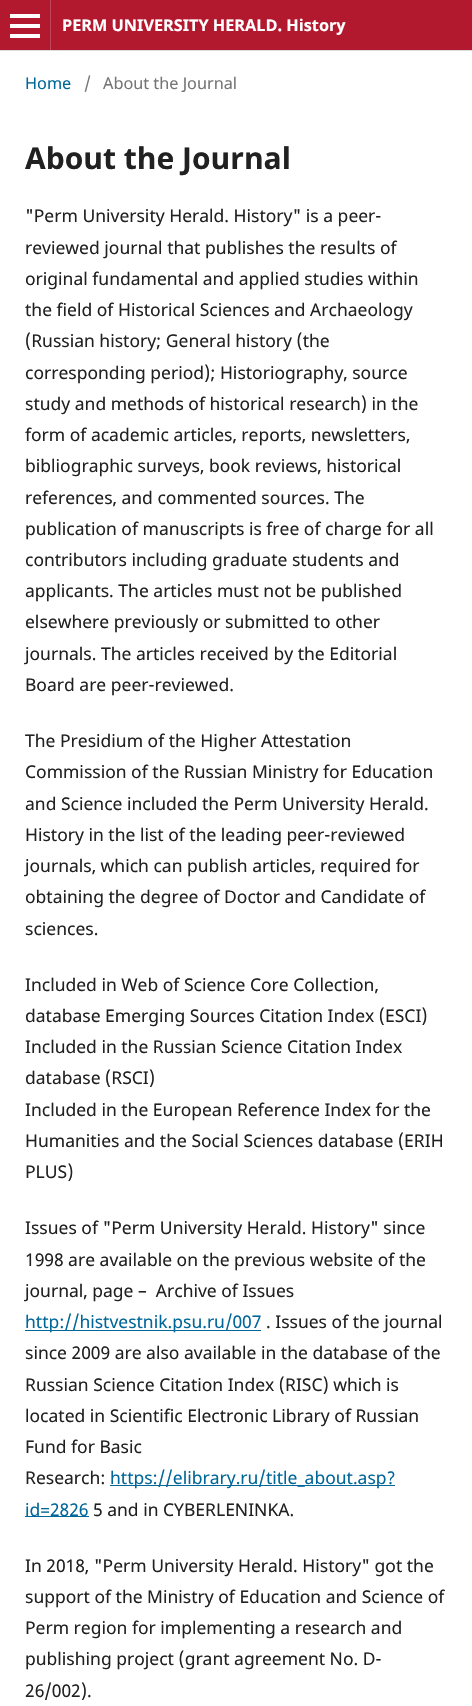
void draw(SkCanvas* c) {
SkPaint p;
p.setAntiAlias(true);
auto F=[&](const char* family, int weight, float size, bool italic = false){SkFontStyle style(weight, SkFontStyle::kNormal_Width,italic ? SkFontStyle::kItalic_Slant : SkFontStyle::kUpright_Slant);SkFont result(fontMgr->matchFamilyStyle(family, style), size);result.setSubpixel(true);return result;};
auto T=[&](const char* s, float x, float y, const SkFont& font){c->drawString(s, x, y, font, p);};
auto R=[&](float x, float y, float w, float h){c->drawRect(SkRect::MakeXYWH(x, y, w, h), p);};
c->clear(0xffffffff);
p.setColor(0xffb2192f);
R(0,0,472,50);
p.setColor(0xffdddddd);
R(0,50,472,1);
p.setColor(0xffc14759);
R(50,0,1,50);
p.setColor(0xffffffff);
R(10,34,30,4);
R(10,14,30,4);
R(10,24,30,4);
auto f1 = F("Noto Sans",700,16.25);
T("PERM UNIVERSITY HERALD. History",62,31,f1);
auto f2 = F("Noto Sans",400,16.25);
p.setColor(0xff006798);
T("Home",25,89,f2);
p.setColor(0xff757575);
T("/",84,89,f2);
T("About the Journal",103,89,f2);
auto f3 = F("Noto Sans",700,30);
p.setColor(0xff212121);
T("About the Journal",25,169,f3);
auto f4 = F("Noto Sans",400,17.5);
T("\"Perm University Herald. History\" is a peer-",25,222,f4);
T("reviewed journal that publishes the results of",25,254,f4);
T("original fundamental and applied studies within",25,285,f4);
T("the field of Historical Sciences and Archaeology",25,316,f4);
T("(Russian history; General history (the",25,347,f4);
T("corresponding period); Historiography, source",25,379,f4);
T("study and methods of historical research) in the",25,410,f4);
T("form of academic articles, reports, newsletters,",25,441,f4);
T("bibliographic surveys, book reviews, historical",25,472,f4);
T("references, and commented sources. The",25,504,f4);
T("publication of manuscripts is free of charge for all",25,535,f4);
T("contributors including graduate students and",25,566,f4);
T("applicants. The articles must not be published",25,597,f4);
T("elsewhere previously or submitted to other",25,628,f4);
T("journals. The articles received by the Editorial",25,660,f4);
T("Board are peer-reviewed.",25,691,f4);
T("The Presidium of the Higher Attestation",25,747,f4);
T("Commission of the Russian Ministry for Education",25,778,f4);
T("and Science included the Perm University Herald.",25,810,f4);
T("History in the list of the leading peer-reviewed",25,841,f4);
T("journals, which can publish articles, required for",25,872,f4);
T("obtaining the degree of Doctor and Candidate of",25,903,f4);
T("sciences.",25,935,f4);
T("Included in Web of Science Core Collection,",25,991,f4);
T("database Emerging Sources Citation Index (ESCI)",25,1022,f4);
T("Included in the Russian Science Citation Index",25,1053,f4);
T("database (RSCI)",25,1084,f4);
T("Included in the European Reference Index for the",25,1116,f4);
T("Humanities and the Social Sciences database (ERIH",25,1147,f4);
T("PLUS)",25,1178,f4);
T("Issues of \"Perm University Herald. History\" since",25,1234,f4);
T("1998 are available on the previous website of the",25,1266,f4);
T("journal, page –  Archive of Issues",25,1297,f4);
p.setColor(0xff006798);
R(25,1330,236,1);
T("http://histvestnik.psu.ru/007",25,1328,f4);
p.setColor(0xff212121);
T(". Issues of the journal",266,1328,f4);
T("since 2009 are also available in the database of the",25,1359,f4);
T("Russian Science Citation Index (RISC) which is",25,1391,f4);
T("located in Scientific Electronic Library of Russian",25,1422,f4);
T("Fund for Basic",25,1453,f4);
T("Research:",25,1484,f4);
p.setColor(0xff006798);
R(110,1485,285,1);
T("https://elibrary.ru/title_about.asp?",110,1484,f4);
R(25,1516,64,1);
T("id=2826",25,1516,f4);
p.setColor(0xff212121);
T("5 and in CYBERLENINKA.",93,1516,f4);
T("In 2018, \"Perm University Herald. History\" got the",25,1572,f4);
T("support of the Ministry of Education and Science of",25,1603,f4);
T("Perm region for implementing a research and",25,1634,f4);
T("publishing project (grant agreement No. D-",25,1665,f4);
T("26/002).",25,1697,f4);
}
